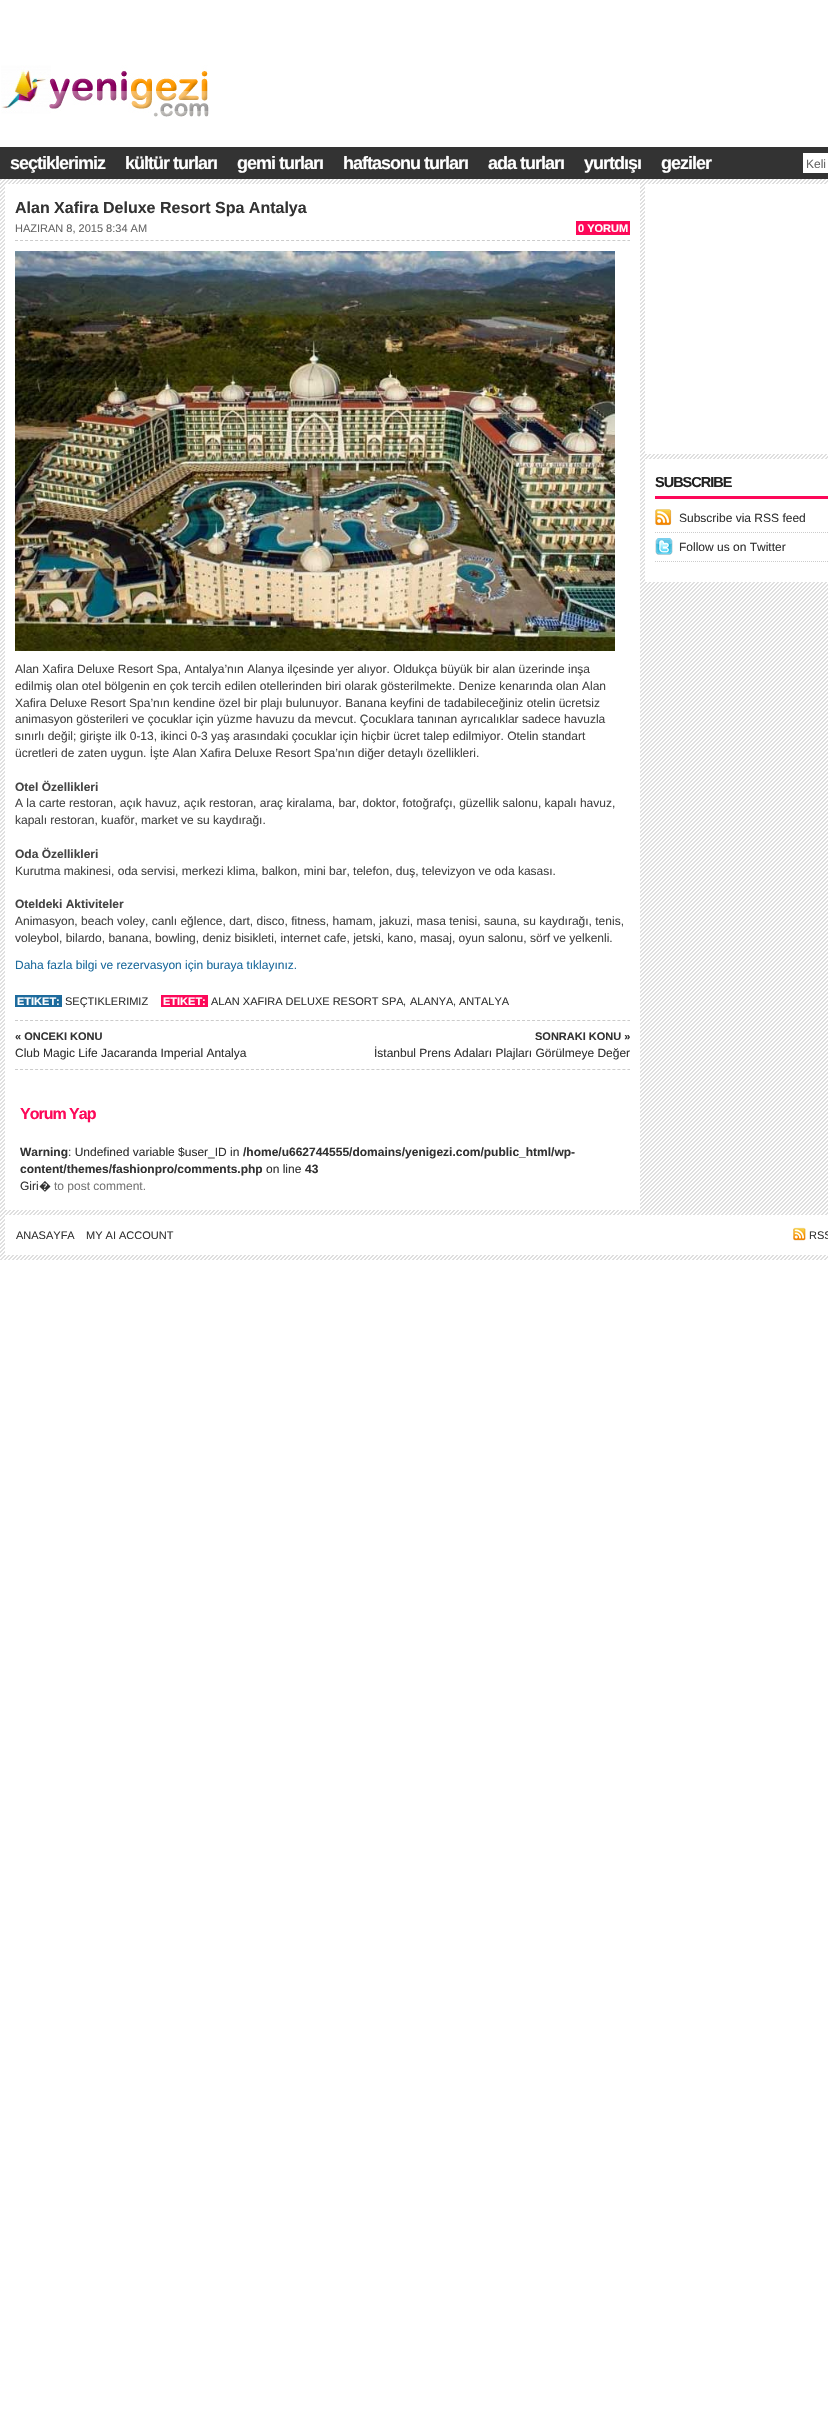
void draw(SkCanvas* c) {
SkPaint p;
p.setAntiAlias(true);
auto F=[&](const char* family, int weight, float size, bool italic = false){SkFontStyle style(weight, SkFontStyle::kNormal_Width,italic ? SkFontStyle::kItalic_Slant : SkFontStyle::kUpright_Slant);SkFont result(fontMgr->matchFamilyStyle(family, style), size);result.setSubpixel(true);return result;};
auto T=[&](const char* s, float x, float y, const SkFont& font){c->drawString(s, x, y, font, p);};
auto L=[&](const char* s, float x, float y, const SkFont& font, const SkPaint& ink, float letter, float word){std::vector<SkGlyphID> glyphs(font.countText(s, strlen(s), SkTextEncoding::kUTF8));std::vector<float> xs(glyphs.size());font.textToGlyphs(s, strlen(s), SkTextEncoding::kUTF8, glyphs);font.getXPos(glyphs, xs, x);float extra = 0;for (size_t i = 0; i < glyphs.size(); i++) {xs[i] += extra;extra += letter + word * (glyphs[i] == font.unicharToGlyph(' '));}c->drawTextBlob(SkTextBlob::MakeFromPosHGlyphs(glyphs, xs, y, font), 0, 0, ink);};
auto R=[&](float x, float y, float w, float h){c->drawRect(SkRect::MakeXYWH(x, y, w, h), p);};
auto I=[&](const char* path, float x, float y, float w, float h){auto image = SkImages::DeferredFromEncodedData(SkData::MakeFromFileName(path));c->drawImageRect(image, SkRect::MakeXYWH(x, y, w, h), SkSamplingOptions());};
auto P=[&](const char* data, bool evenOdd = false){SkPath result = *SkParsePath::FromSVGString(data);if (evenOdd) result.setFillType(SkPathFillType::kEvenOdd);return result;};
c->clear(0xffffffff);
I("1.png",1,65,208,52);
p.setColor(0xff333333);
R(0,147,828,32);
auto f1 = F("Liberation Sans",700,18);
p.setColor(0xffffffff);
L("seçtiklerimiz",10,169,f1,p,-1,0);
L("kültür turları",125,169,f1,p,-1,0);
L("gemi turları",237,169,f1,p,-1,0);
L("haftasonu turları",343,169,f1,p,-1,0);
L("ada turları",488,169,f1,p,-1,0);
L("yurtdışı",584,169,f1,p,-1,0);
L("geziler",661,169,f1,p,-1,0);
R(803,153,25,20);
auto f2 = F("Liberation Sans",400,12);
p.setColor(0xff666666);
T("Keli",806,168,f2);
I("2.png",0,179,828,1081);
p.setColor(0xffffffff);
R(5,184,635,1026);
auto f3 = F("Liberation Sans",700,16);
p.setColor(0xff333333);
T("Alan Xafira Deluxe Resort Spa Antalya",15,213,f3);
p.setStroke(true);
p.setStrokeWidth(1);
p.setColor(0xffcccccc);
p.setPathEffect(SkDashPathEffect::Make({{3,2.02f}}, 0));
c->drawPath(P("M15 240.5h615"),p);
p.setPathEffect(nullptr);
auto f4 = F("Liberation Sans",400,11);
p.setStroke(false);
p.setColor(0xff666666);
T("HAZIRAN 8, 2015 8:34 AM",15,232,f4);
p.setColor(0xfffd0859);
R(576,221,54,14);
auto f5 = F("Liberation Sans",700,11);
p.setColor(0xffffffff);
T("0 YORUM",578,232,f5);
I("3.png",15,251,600,400);
p.setColor(0xff444444);
T("Alan Xafira Deluxe Resort Spa, Antalya’nın Alanya ilçesinde yer alıyor. Oldukça büyük bir alan üzerinde inşa",15,673,f2);
T("edilmiş olan otel bölgenin en çok tercih edilen otellerinden biri olarak gösterilmekte. Denize kenarında olan Alan",15,690,f2);
T("Xafira Deluxe Resort Spa’nın kendine özel bir plajı bulunuyor. Banana keyfini de tadabileceğiniz otelin ücretsiz",15,707,f2);
T("animasyon gösterileri ve çocuklar için yüzme havuzu da mevcut. Çocuklara tanınan ayrıcalıklar sadece havuzla",15,723,f2);
T("sınırlı değil; girişte ilk 0-13, ikinci 0-3 yaş arasındaki çocuklar için hiçbir ücret talep edilmiyor. Otelin standart",15,740,f2);
T("ücretleri de zaten uygun. İşte Alan Xafira Deluxe Resort Spa’nın diğer detaylı özellikleri.",15,757,f2);
auto f6 = F("Liberation Sans",700,12);
T("Otel Özellikleri",15,791,f6);
T("A la carte restoran, açık havuz, açık restoran, araç kiralama, bar, doktor, fotoğrafçı, güzellik salonu, kapalı havuz,",15,807,f2);
T("kapalı restoran, kuaför, market ve su kaydırağı.",15,824,f2);
T("Oda Özellikleri",15,858,f6);
T("Kurutma makinesi, oda servisi, merkezi klima, balkon, mini bar, telefon, duş, televizyon ve oda kasası.",15,875,f2);
T("Oteldeki Aktiviteler",15,908,f6);
T("Animasyon, beach voley, canlı eğlence, dart, disco, fitness, hamam, jakuzi, masa tenisi, sauna, su kaydırağı, tenis,",15,925,f2);
T("voleybol, bilardo, banana, bowling, deniz bisikleti, internet cafe, jetski, kano, masaj, oyun salonu, sörf ve yelkenli.",15,942,f2);
p.setColor(0xff1d6b9d);
T("Daha fazla bilgi ve rezervasyon için buraya tıklayınız.",15,969,f2);
R(15,995,47,12);
p.setColor(0xffffffff);
T("ETIKET:",17,1005,f5);
p.setColor(0xff333333);
T("SEÇTIKLERIMIZ",65,1005,f4);
p.setColor(0xfffd0859);
R(161,995,47,12);
p.setColor(0xffffffff);
T("ETIKET:",163,1005,f5);
p.setColor(0xff333333);
T("ALAN XAFIRA DELUXE RESORT SPA",211,1005,f4);
p.setColor(0xff444444);
T(",",403,1005,f4);
p.setColor(0xff333333);
T("ALANYA",410,1005,f4);
p.setColor(0xff444444);
T(",",453,1005,f4);
p.setColor(0xff333333);
T("ANTALYA",459,1005,f4);
p.setStroke(true);
p.setColor(0xffcccccc);
p.setPathEffect(SkDashPathEffect::Make({{3,2.02f}}, 0));
c->drawPath(P("M15 1020.5h615"),p);
p.setPathEffect(nullptr);
p.setStroke(false);
p.setColor(0xff333333);
T("« ONCEKI KONU",15,1040,f5);
T("Club Magic Life Jacaranda Imperial Antalya",15,1057,f2);
T("SONRAKI KONU »",535,1040,f5);
T("İstanbul Prens Adaları Plajları Görülmeye Değer",374,1057,f2);
p.setStroke(true);
p.setColor(0xffcccccc);
p.setPathEffect(SkDashPathEffect::Make({{3,2.02f}}, 0));
c->drawPath(P("M15 1069.5h615"),p);
p.setPathEffect(nullptr);
p.setStroke(false);
p.setColor(0xfffd0859);
L("Yorum Yap",20,1119,f3,p,-1,0);
p.setColor(0xff333333);
T("Warning",20,1156,f6);
T(": Undefined variable $user_ID in",68,1156,f2);
T("/home/u662744555/domains/yenigezi.com/public_html/wp-",243,1156,f6);
T("content/themes/fashionpro/comments.php",20,1173,f6);
T("on line",266,1173,f2);
T("43",305,1173,f6);
T("Giri",20,1190,f2);
auto f7 = F("Noto Sans",400,12);
T("�",39,1190,f7);
p.setColor(0xff777777);
T("to post comment.",54,1190,f2);
p.setColor(0xffffffff);
R(645,184,183,270);
R(645,459,183,123);
p.setColor(0xfffd0859);
R(655,496,173,3);
auto f8 = F("Liberation Sans",700,14.5);
p.setColor(0xff222222);
L("SUBSCRIBE",655,487,f8,p,-1,0);
I("4.png",655,509,17,17);
p.setStroke(true);
p.setColor(0xffcccccc);
p.setPathEffect(SkDashPathEffect::Make({{1,1}}, 0));
c->drawPath(P("M655 532.5h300"),p);
p.setPathEffect(nullptr);
p.setStroke(false);
p.setColor(0xff333333);
T("Subscribe via RSS feed",679,522,f2);
I("5.png",655,538,18,17);
p.setStroke(true);
p.setColor(0xffcccccc);
p.setPathEffect(SkDashPathEffect::Make({{1,1}}, 0));
c->drawPath(P("M655 561.5h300"),p);
p.setPathEffect(nullptr);
p.setStroke(false);
p.setColor(0xff333333);
T("Follow us on Twitter",679,551,f2);
p.setColor(0xffffffff);
R(5,1215,823,40);
p.setColor(0xff333333);
T("ANASAYFA",16,1239,f4);
T("MY AI ACCOUNT",86,1239,f4);
I("6.png",793,1227,13,14);
T("RSS",809,1239,f4);
}
